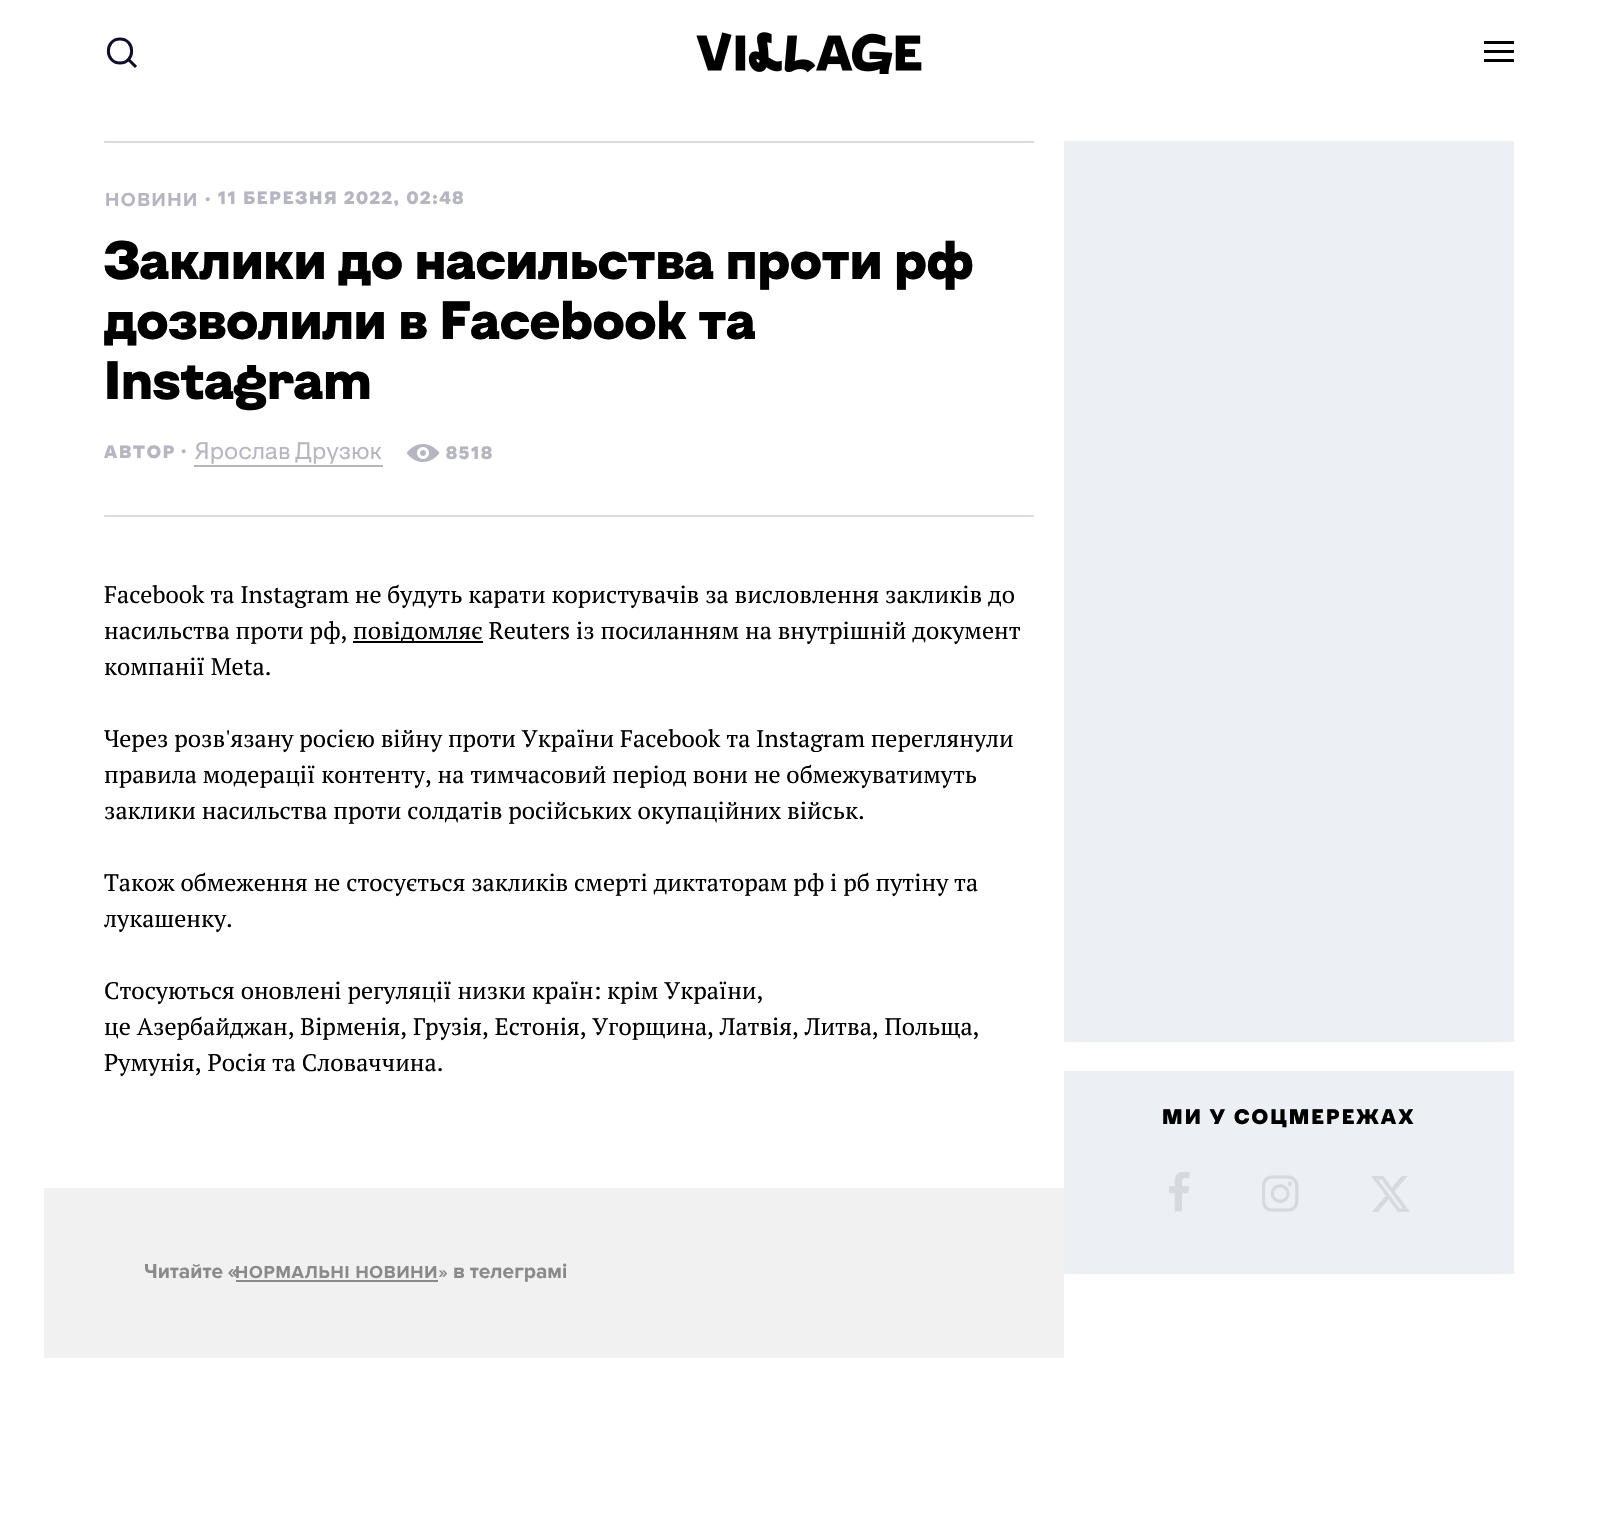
void draw(SkCanvas* c) {
SkPaint p;
p.setAntiAlias(true);
auto F=[&](const char* family, int weight, float size, bool italic = false){SkFontStyle style(weight, SkFontStyle::kNormal_Width,italic ? SkFontStyle::kItalic_Slant : SkFontStyle::kUpright_Slant);SkFont result(fontMgr->matchFamilyStyle(family, style), size);result.setSubpixel(true);return result;};
auto T=[&](const char* s, float x, float y, const SkFont& font){c->drawString(s, x, y, font, p);};
auto L=[&](const char* s, float x, float y, const SkFont& font, const SkPaint& ink, float letter, float word){std::vector<SkGlyphID> glyphs(font.countText(s, strlen(s), SkTextEncoding::kUTF8));std::vector<float> xs(glyphs.size());font.textToGlyphs(s, strlen(s), SkTextEncoding::kUTF8, glyphs);font.getXPos(glyphs, xs, x);float extra = 0;for (size_t i = 0; i < glyphs.size(); i++) {xs[i] += extra;extra += letter + word * (glyphs[i] == font.unicharToGlyph(' '));}c->drawTextBlob(SkTextBlob::MakeFromPosHGlyphs(glyphs, xs, y, font), 0, 0, ink);};
auto R=[&](float x, float y, float w, float h){c->drawRect(SkRect::MakeXYWH(x, y, w, h), p);};
auto I=[&](const char* path, float x, float y, float w, float h){auto image = SkImages::DeferredFromEncodedData(SkData::MakeFromFileName(path));c->drawImageRect(image, SkRect::MakeXYWH(x, y, w, h), SkSamplingOptions());};
auto P=[&](const char* data, bool evenOdd = false){SkPath result = *SkParsePath::FromSVGString(data);if (evenOdd) result.setFillType(SkPathFillType::kEvenOdd);return result;};
c->clear(0xffffffff);
p.setStroke(true);
p.setStrokeWidth(3);
p.setStrokeCap(SkPaint::kRound_Cap);
p.setStrokeJoin(SkPaint::kRound_Join);
p.setColor(0xff0e0e2c);
c->drawPath(P("M120 63c15.5 0 15.5-24 0-24c-15.5 0-15.5 24 0 24z"),p);
p.setStrokeCap(SkPaint::kSquare_Cap);
c->drawPath(P("M135 66l-6.5-6.5"),p);
I("1.png",696,32,226,42);
p.setStroke(false);
p.setColor(0xff000000);
R(1484,41,30,3);
R(1484,50,30,3);
R(1484,59,30,3);
p.setColor(0xffdadae0);
R(104,141,930,2);
R(104,515,930,2);
auto f1 = F("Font",700,19.5);
p.setColor(0xffb6b6c2);
L("НОВИНИ",105,206,f1,p,1.5,0);
auto f2 = F("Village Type",900,18);
L(".",205,201,f2,p,1.8,0);
L("11 БЕРЕЗНЯ 2022, 02:48",218,204,f2,p,1.8,0);
auto f3 = F("Village Type",900,54);
p.setColor(0xff000000);
T("Заклики до насильства проти рф",104,279,f3);
T("дозволили в Facebook та",104,339,f3);
T("Instagram",104,399,f3);
p.setColor(0xffb6b6c2);
L("АВТОР",104,458,f2,p,1.8,0);
L(".",181,453,f2,p,1.8,0);
R(194,465,189,2);
auto f4 = F("Village Type",400,24);
T("Ярослав Друзюк",195,459,f4);
I("2.png",407,444,33,18);
L("8518",446,459,f2,p,1.8,0);
auto f5 = F("PT Serif",400,24);
p.setColor(0xff000000);
T("Facebook та Instagram не будуть карати користувачів за висловлення закликів до",104,603,f5);
T("насильства проти рф,",104,639,f5);
R(353,641,130,2);
T("повідомляє Reuters із посиланням на внутрішній документ",353,639,f5);
T("компанії Meta.",104,675,f5);
T("Через розв'язану росією війну проти України Facebook та Instagram переглянули",104,747,f5);
T("правила модерації контенту, на тимчасовий період вони не обмежуватимуть",104,783,f5);
T("заклики насильства проти солдатів російських окупаційних військ.",104,819,f5);
T("Також обмеження не стосується закликів смерті диктаторам рф і рб путіну та",104,891,f5);
T("лукашенку.",104,927,f5);
T("Стосуються оновлені регуляції низки країн: крім України,",104,999,f5);
T("це Азербайджан, Вірменія, Грузія, Естонія, Угорщина, Латвія, Литва, Польща,",104,1035,f5);
T("Румунія, Росія та Словаччина.",104,1071,f5);
p.setColor(0xfff1f1f1);
R(44,1188,1020,170);
auto f6 = F("Font",700,21);
p.setColor(0xff8a8a8a);
L("Читайте «",144,1278,f6,p,0,-1);
auto f7 = F("Font",700,18);
L("НОРМАЛЬНІ НОВИНИ»",235,1278,f7,p,.75,0);
R(236,1280,202,2);
L("в телеграмі",453,1278,f6,p,0,-1);
p.setColor(0xffecf0f4);
R(1064,141,450,901);
R(1064,1071,450,203);
auto f8 = F("Village Type",900,21);
p.setColor(0xff000000);
L("МИ У СОЦМЕРЕЖАХ",1162,1124,f8,p,2.1,0);
I("3.png",1169,1172,21,40);
I("4.png",1262,1175,37,37);
I("5.png",1371,1176,39,36);
}
